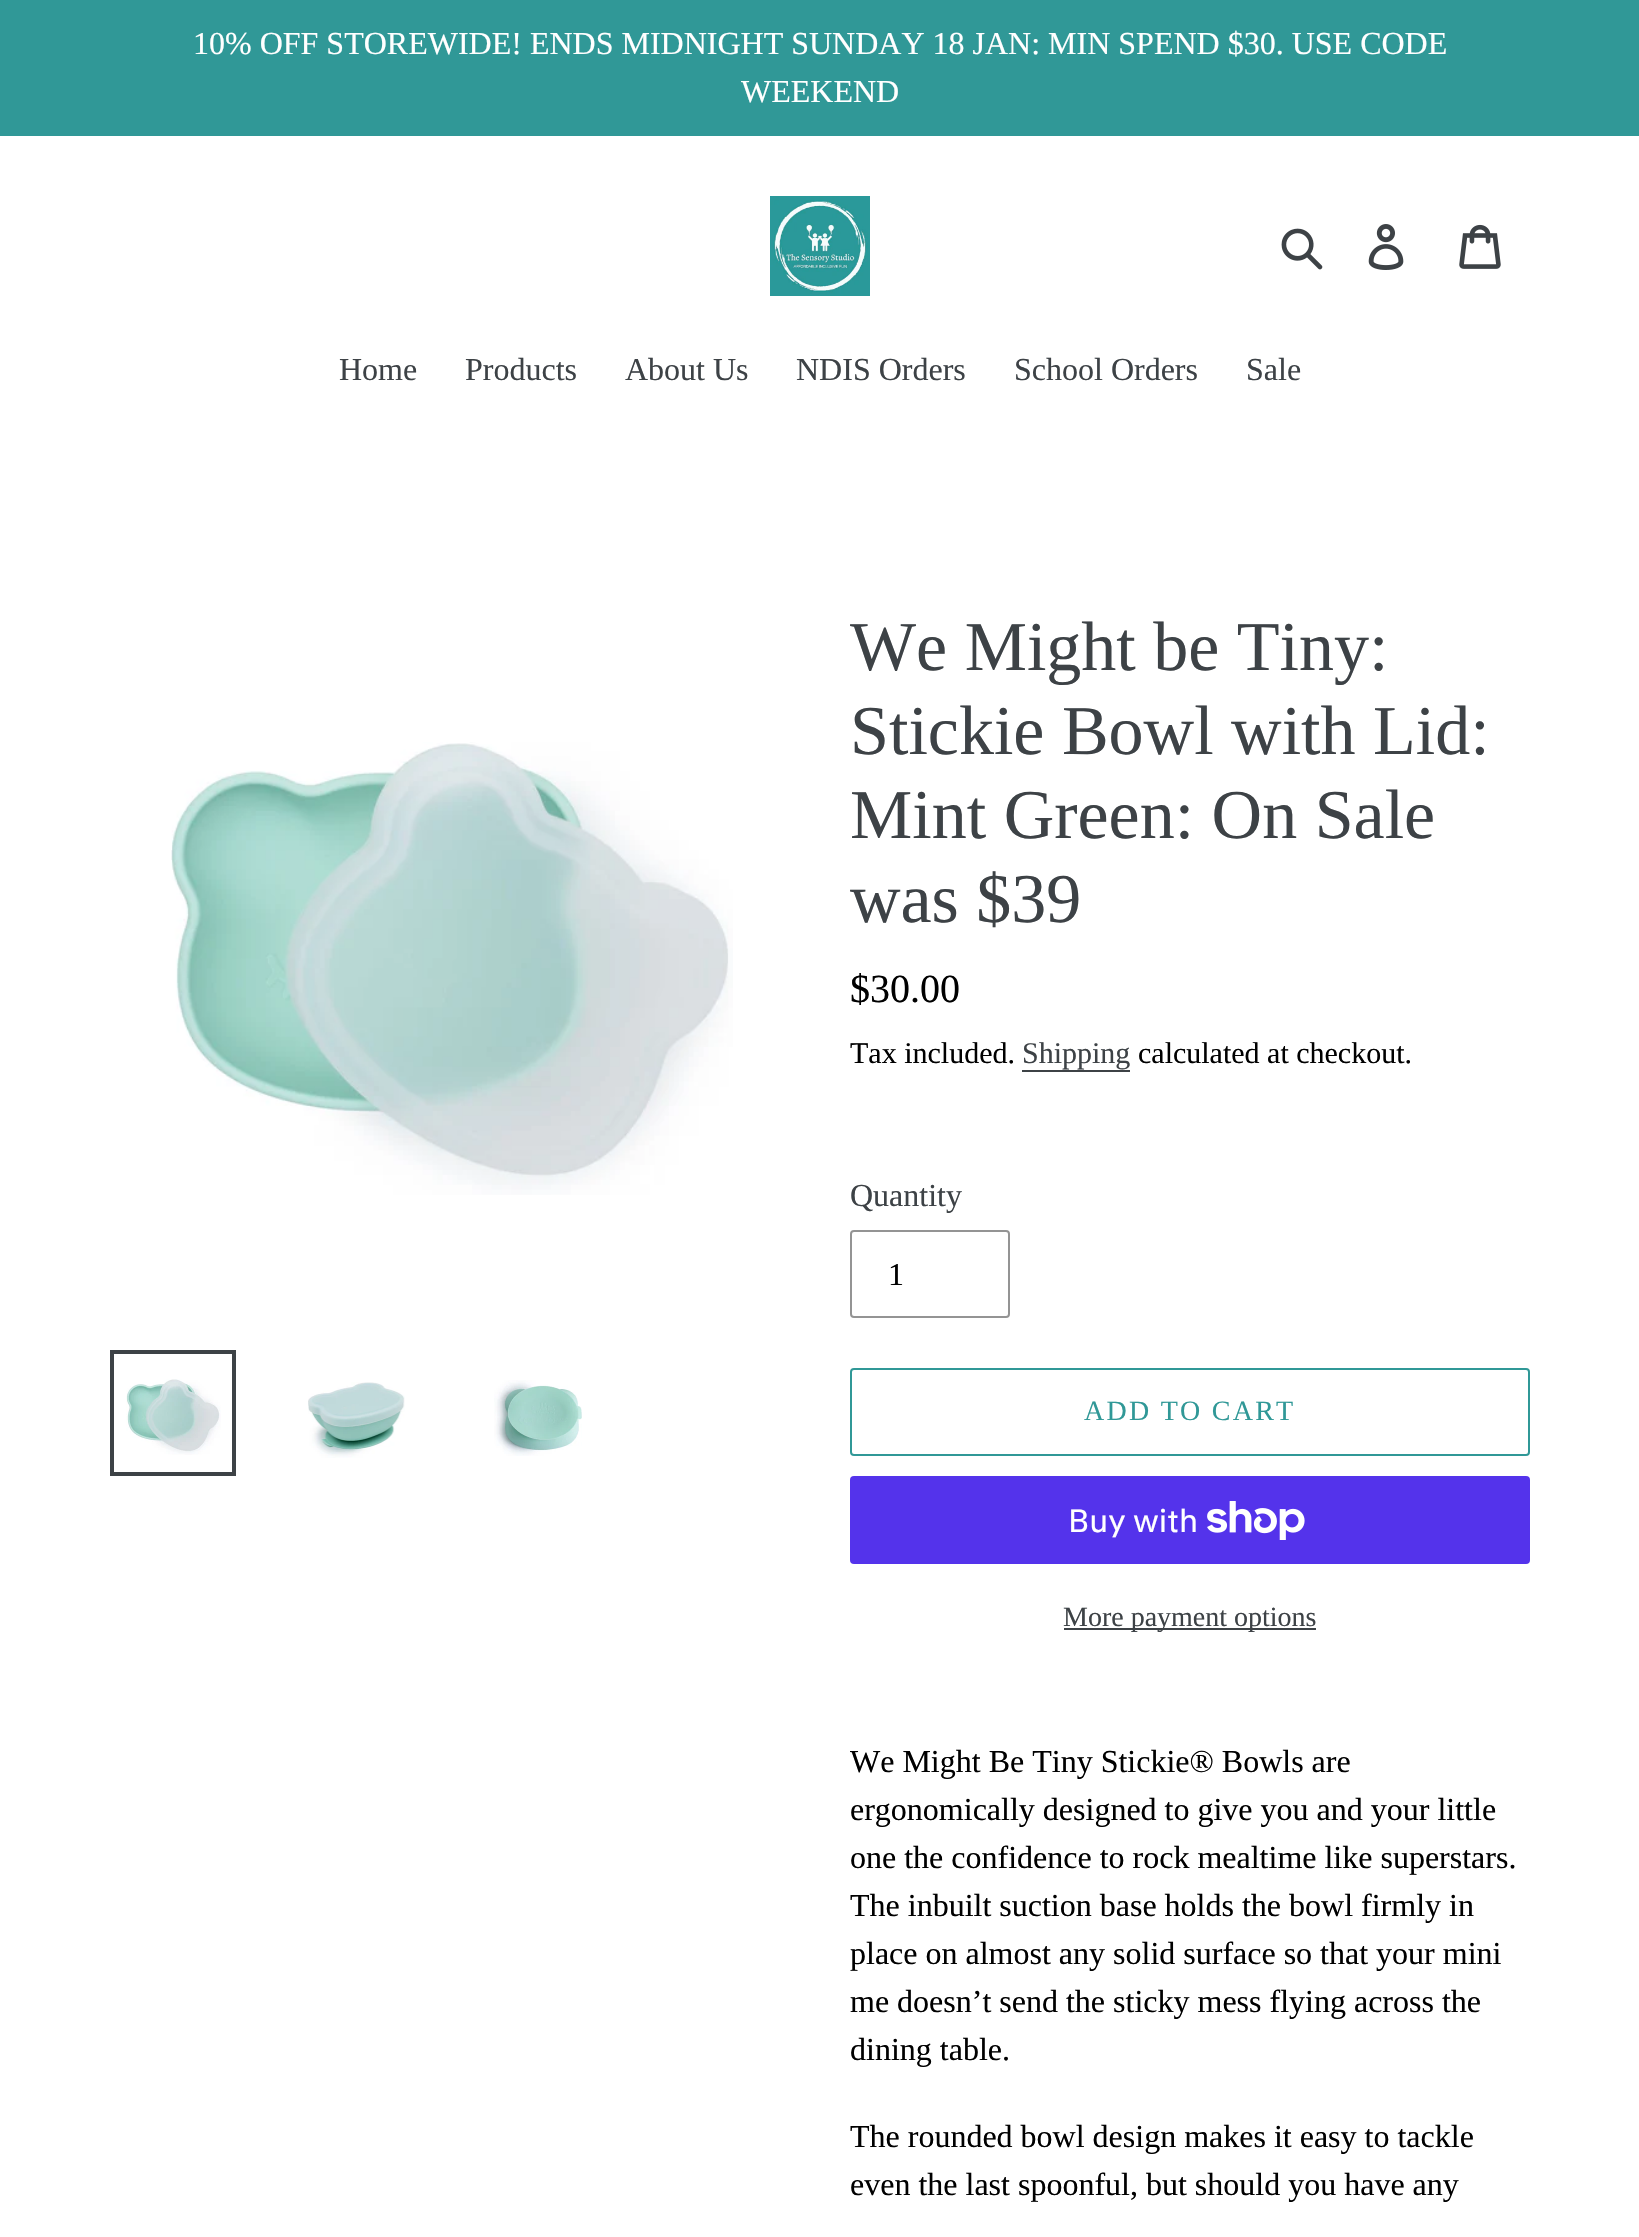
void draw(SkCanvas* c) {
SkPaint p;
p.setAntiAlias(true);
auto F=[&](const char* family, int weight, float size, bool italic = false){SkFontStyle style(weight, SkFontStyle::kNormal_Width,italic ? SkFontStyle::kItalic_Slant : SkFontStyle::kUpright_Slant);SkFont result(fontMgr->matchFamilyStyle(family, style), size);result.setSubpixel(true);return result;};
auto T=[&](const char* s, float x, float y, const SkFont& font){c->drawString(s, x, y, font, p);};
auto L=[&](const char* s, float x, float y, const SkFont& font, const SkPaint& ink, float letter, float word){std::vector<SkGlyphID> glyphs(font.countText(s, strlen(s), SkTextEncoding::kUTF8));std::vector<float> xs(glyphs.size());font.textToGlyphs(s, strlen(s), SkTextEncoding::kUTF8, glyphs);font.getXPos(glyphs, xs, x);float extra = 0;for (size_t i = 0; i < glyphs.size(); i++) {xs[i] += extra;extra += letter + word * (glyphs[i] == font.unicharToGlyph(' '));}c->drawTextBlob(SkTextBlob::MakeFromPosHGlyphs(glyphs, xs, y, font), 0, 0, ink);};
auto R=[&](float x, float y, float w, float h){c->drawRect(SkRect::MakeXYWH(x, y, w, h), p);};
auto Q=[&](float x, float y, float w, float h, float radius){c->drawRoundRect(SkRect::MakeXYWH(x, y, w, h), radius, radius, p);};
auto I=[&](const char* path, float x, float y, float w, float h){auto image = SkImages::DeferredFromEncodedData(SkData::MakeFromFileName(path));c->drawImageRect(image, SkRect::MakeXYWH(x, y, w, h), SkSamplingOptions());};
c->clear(0xffffffff);
p.setColor(0xff309897);
R(0,0,1639,136);
auto f1 = F("Liberation Serif",400,32);
p.setColor(0xffffffff);
T("10% OFF STOREWIDE! ENDS MIDNIGHT SUNDAY 18 JAN: MIN SPEND $30. USE CODE",193,54,f1);
T("WEEKEND",741,102,f1);
I("1.png",770,196,100,100);
I("2.png",1281,228,42,42);
I("3.png",1368,224,36,46);
I("4.png",1459,224,42,45);
p.setColor(0xff3d4246);
T("Home",339,380,f1);
T("Products",465,380,f1);
T("About Us",625,380,f1);
T("NDIS Orders",796,380,f1);
T("School Orders",1014,380,f1);
T("Sale",1246,380,f1);
I("5.png",171,742,562,453);
p.setStroke(true);
p.setStrokeWidth(4);
c->drawRect(SkRect::MakeXYWH(112,1352,122,122),p);
I("6.png",126,1379,95,76);
I("7.png",308,1382,97,76);
I("8.png",494,1380,88,76);
auto f2 = F("Liberation Serif",400,70);
p.setStroke(false);
T("We Might be Tiny:",850,670,f2);
T("Stickie Bowl with Lid:",850,754,f2);
T("Mint Green: On Sale",850,838,f2);
T("was $39",850,922,f2);
auto f3 = F("Liberation Serif",400,40);
p.setColor(0xff000000);
T("$30.00",850,1002,f3);
auto f4 = F("Liberation Serif",400,30);
T("Tax included.",850,1063,f4);
p.setColor(0xff3d4246);
T("Shipping",1022,1063,f4);
R(1022,1070,108,2);
p.setColor(0xff000000);
T("calculated at checkout.",1138,1063,f4);
p.setColor(0xff3d4246);
T("Quantity",850,1206,f1);
p.setStroke(true);
p.setStrokeWidth(2);
p.setColor(0xff949494);
c->drawRoundRect(SkRect::MakeXYWH(851,1231,158,86),3,3,p);
p.setStroke(false);
p.setColor(0xff000000);
T("1",888,1285,f1);
p.setStroke(true);
p.setColor(0xff309897);
c->drawRoundRect(SkRect::MakeXYWH(851,1369,678,86),3,3,p);
auto f5 = F("Liberation Serif",400,28);
p.setStroke(false);
L("ADD TO CART",1084,1420,f5,p,2.25,0);
p.setColor(0xff5433eb);
Q(850,1476,680,88,4);
auto f6 = F("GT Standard",400,32);
p.setColor(0xffffffff);
T("Buy with",1068,1532,f6);
I("9.png",1207,1501,98,39);
p.setColor(0xff3d4246);
R(1064,1628,252,2);
T("More payment options",1063,1626,f5);
p.setColor(0xff000000);
T("We Might Be Tiny Stickie® Bowls are",850,1772,f1);
T("ergonomically designed to give you and your little",850,1820,f1);
T("one the confidence to rock mealtime like superstars.",850,1868,f1);
T("The inbuilt suction base holds the bowl firmly in",850,1916,f1);
T("place on almost any solid surface so that your mini",850,1964,f1);
T("me doesn’t send the sticky mess flying across the",850,2012,f1);
T("dining table.",850,2060,f1);
T("The rounded bowl design makes it easy to tackle",850,2147,f1);
T("even the last spoonful, but should you have any",850,2195,f1);
}
